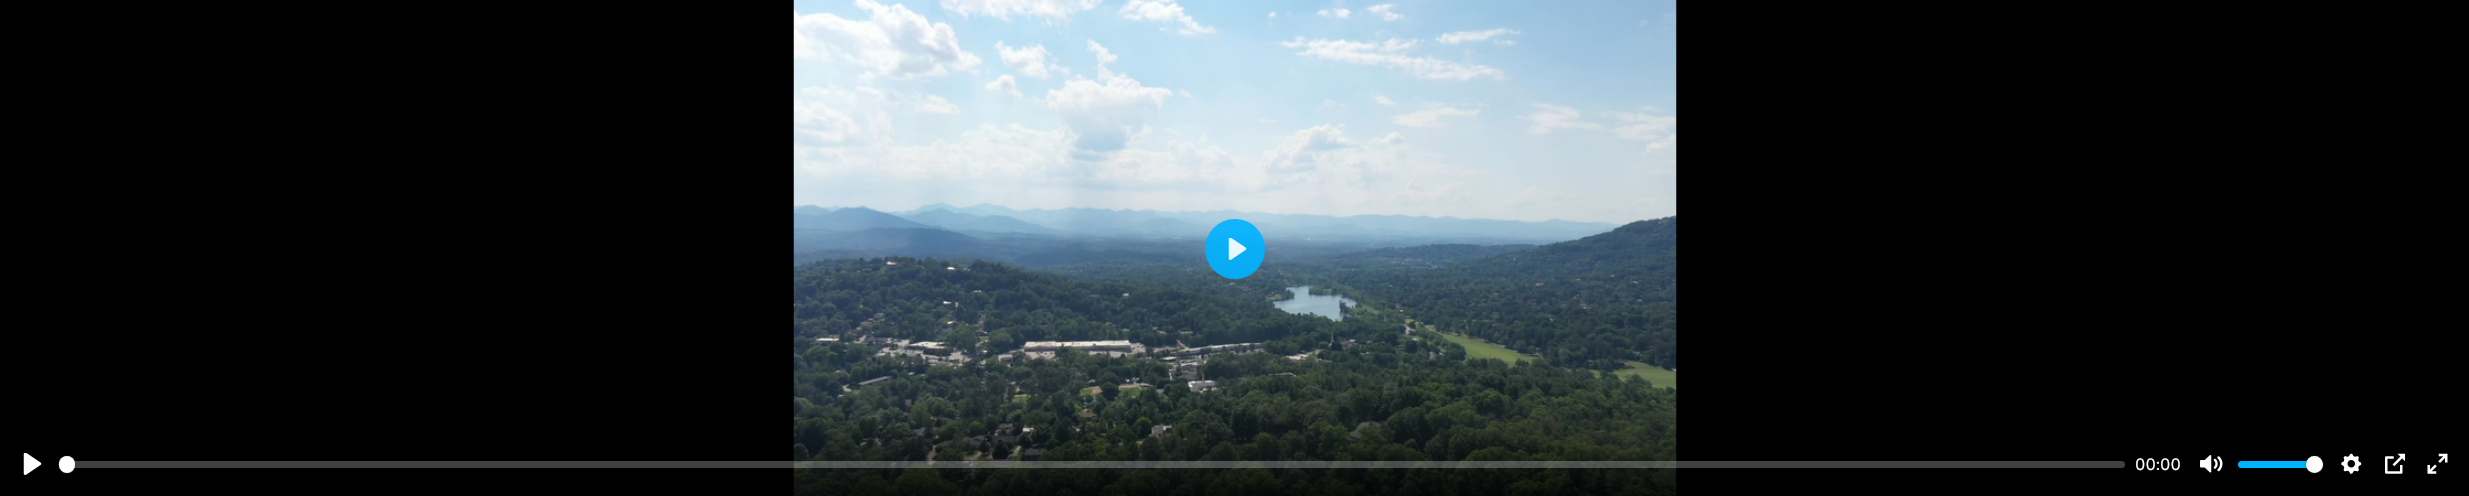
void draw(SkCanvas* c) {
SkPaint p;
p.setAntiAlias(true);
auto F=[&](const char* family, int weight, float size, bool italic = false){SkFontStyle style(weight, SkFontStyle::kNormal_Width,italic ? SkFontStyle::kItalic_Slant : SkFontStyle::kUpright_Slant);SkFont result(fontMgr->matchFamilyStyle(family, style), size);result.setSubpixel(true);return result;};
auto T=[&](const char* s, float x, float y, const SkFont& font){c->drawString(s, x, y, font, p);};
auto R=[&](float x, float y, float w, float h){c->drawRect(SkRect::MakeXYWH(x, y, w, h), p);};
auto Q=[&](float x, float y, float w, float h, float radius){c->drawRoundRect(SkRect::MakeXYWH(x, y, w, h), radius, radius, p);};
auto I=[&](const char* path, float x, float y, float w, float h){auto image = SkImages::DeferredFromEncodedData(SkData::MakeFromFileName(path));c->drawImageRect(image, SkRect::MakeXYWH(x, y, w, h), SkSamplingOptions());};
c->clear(0xff000000);
I("1.png",58,0,2266,496);
p.setColor(0xe600b3ff);
c->drawCircle(1235,249,30,p);
I("2.png",1228,238,19,22);
{
const SkColor colors[] = {0x00000000,0xbf000000};
const float stops[] = {0,1};
const SkPoint ends[] = {{1235,400}, {1235,496}};
p.setShader(SkGradientShader::MakeLinear(ends, colors, stops, 2, SkTileMode::kClamp));
p.setAlpha(255);
}
R(58,403,2265,93);
I("3.png",23,453,19,22);
p.setShader(nullptr);
p.setColor(0x40ffffff);
Q(59,461,2066,7,3.5);
p.setStroke(true);
p.setStrokeWidth(1);
p.setColor(0x3323282f);
c->drawRoundRect(SkRect::MakeXYWH(58.5,455.5,17,18),8.5,8.5,p);
p.setStroke(false);
p.setColor(0x2623282f);
p.setMaskFilter(SkMaskFilter::MakeBlur(kNormal_SkBlurStyle, .5));
c->drawRoundRect(SkRect::MakeXYWH(59,458,16,16),8,8,p);
p.setMaskFilter(nullptr);
p.setColor(0xffffffff);
Q(59,456,16,17,8);
auto f1 = F("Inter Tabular",400,16);
T("00:00",2135,470,f1);
I("4.png",2200,455,23,18);
p.setColor(0xff00b3ff);
Q(2238,461,85,7,3.5);
p.setStroke(true);
p.setColor(0x3323282f);
c->drawCircle(2314.5,464.5,9,p);
p.setStroke(false);
p.setColor(0x2623282f);
p.setMaskFilter(SkMaskFilter::MakeBlur(kNormal_SkBlurStyle, .5));
c->drawRoundRect(SkRect::MakeXYWH(2306,458,17,16),8,8,p);
p.setMaskFilter(nullptr);
p.setColor(0xffffffff);
c->drawCircle(2314.5,464.5,8.5,p);
I("5.png",2341,453,21,21);
I("6.png",2385,453,20,21);
I("7.png",2427,453,21,21);
}
